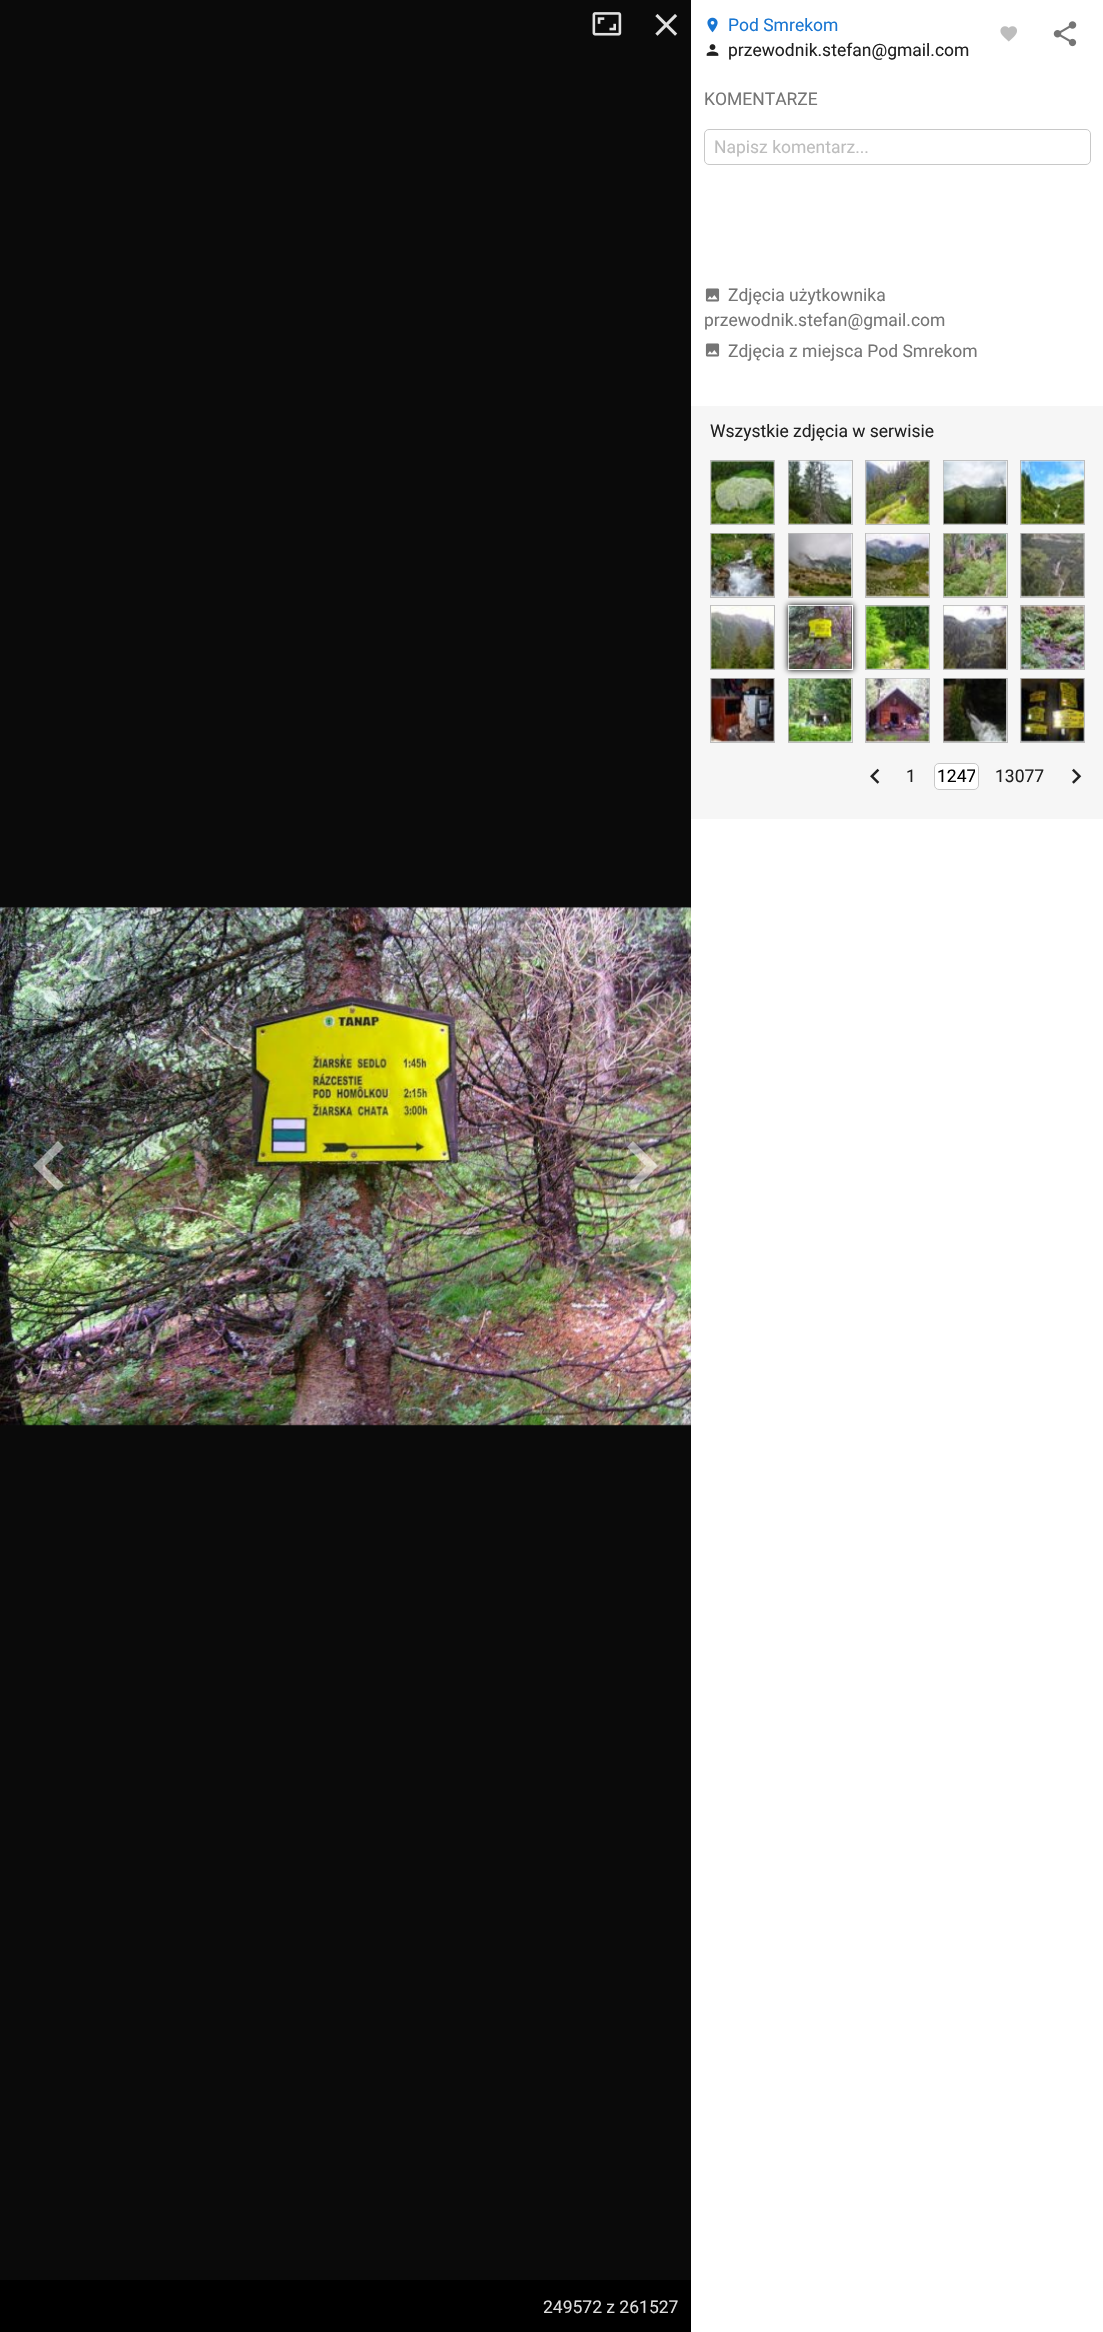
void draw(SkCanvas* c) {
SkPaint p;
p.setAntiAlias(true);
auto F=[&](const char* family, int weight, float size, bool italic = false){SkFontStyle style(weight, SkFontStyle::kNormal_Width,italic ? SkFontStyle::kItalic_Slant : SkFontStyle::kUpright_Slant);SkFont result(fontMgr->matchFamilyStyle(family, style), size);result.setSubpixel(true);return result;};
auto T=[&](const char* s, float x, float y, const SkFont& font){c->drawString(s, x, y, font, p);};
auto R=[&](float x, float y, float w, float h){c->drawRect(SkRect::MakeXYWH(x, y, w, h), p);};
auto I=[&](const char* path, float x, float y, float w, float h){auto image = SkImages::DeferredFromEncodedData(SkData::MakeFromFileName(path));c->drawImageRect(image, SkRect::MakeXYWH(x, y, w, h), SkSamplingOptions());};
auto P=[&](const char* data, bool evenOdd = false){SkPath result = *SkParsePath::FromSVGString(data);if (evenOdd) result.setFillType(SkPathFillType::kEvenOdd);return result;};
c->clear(0xff0a0a0a);
p.setColor(0xffffffff);
R(691,0,412,2332);
I("1.png",707,17,11,16);
auto f1 = F("Roboto",400,17.5);
p.setColor(0xff1976d2);
T("Pod Smrekom",728,31,f1);
I("2.png",706,44,13,12);
p.setColor(0xff212121);
T("przewodnik.stefan@gmail.com",728,56,f1);
I("3.png",1000,26,17,16);
I("4.png",1053,21,24,26);
p.setColor(0xff757575);
T("KOMENTARZE",704,105,f1);
p.setStroke(true);
p.setStrokeWidth(1);
p.setColor(0xffc8c8c8);
c->drawRoundRect(SkRect::MakeXYWH(704.5,129.5,386,35),4.5,4.5,p);
p.setStroke(false);
p.setColor(0xffbdbdbd);
T("Napisz komentarz...",714,153,f1);
I("5.png",705,288,15,14);
p.setColor(0xff757575);
T("Zdjęcia użytkownika",728,301,f1);
T("przewodnik.stefan@gmail.com",704,326,f1);
I("5.png",705,343,15,14);
T("Zdjęcia z miejsca Pod Smrekom",728,357,f1);
p.setColor(0xfff6f6f6);
R(691,406,412,413);
p.setColor(0xff212121);
T("Wszystkie zdjęcia w serwisie",710,437,f1);
p.setStroke(true);
p.setColor(0xffbdbdbd);
c->drawRect(SkRect::MakeXYWH(710.5,460.5,64,64),p);
I("6.png",711,460,63,64);
c->drawRect(SkRect::MakeXYWH(788.5,460.5,64,64),p);
I("7.png",788,460,64,64);
c->drawRect(SkRect::MakeXYWH(865.5,460.5,64,64),p);
I("8.png",866,460,63,64);
c->drawRect(SkRect::MakeXYWH(943.5,460.5,64,64),p);
I("9.png",943,460,64,64);
c->drawRect(SkRect::MakeXYWH(1020.5,460.5,64,64),p);
I("10.png",1021,460,63,64);
c->drawRect(SkRect::MakeXYWH(710.5,533.5,64,64),p);
I("11.png",711,533,63,64);
c->drawRect(SkRect::MakeXYWH(788.5,533.5,64,64),p);
I("12.png",788,533,64,64);
c->drawRect(SkRect::MakeXYWH(865.5,533.5,64,64),p);
I("13.png",866,533,63,64);
c->drawRect(SkRect::MakeXYWH(943.5,533.5,64,64),p);
I("14.png",943,533,64,64);
c->drawRect(SkRect::MakeXYWH(1020.5,533.5,64,64),p);
I("15.png",1021,533,63,64);
c->drawRect(SkRect::MakeXYWH(710.5,605.5,64,64),p);
I("16.png",711,605,63,64);
p.setStroke(false);
p.setColor(0xff000000);
p.setMaskFilter(SkMaskFilter::MakeBlur(kNormal_SkBlurStyle, 3));
c->drawRect(SkRect::MakeXYWH(788,605,65,65),p);
p.setMaskFilter(nullptr);
p.setStroke(true);
p.setColor(0xffffffff);
c->drawRect(SkRect::MakeXYWH(788.5,605.5,64,64),p);
I("17.png",788,605,64,64);
p.setColor(0xffbdbdbd);
c->drawRect(SkRect::MakeXYWH(865.5,605.5,64,64),p);
I("18.png",866,605,63,64);
c->drawRect(SkRect::MakeXYWH(943.5,605.5,64,64),p);
I("19.png",943,605,64,64);
c->drawRect(SkRect::MakeXYWH(1020.5,605.5,64,64),p);
I("20.png",1021,605,63,64);
c->drawRect(SkRect::MakeXYWH(710.5,678.5,64,64),p);
I("21.png",711,678,63,64);
c->drawRect(SkRect::MakeXYWH(788.5,678.5,64,64),p);
I("22.png",788,678,64,64);
c->drawRect(SkRect::MakeXYWH(865.5,678.5,64,64),p);
I("23.png",866,678,63,64);
c->drawRect(SkRect::MakeXYWH(943.5,678.5,64,64),p);
I("24.png",943,678,64,64);
c->drawRect(SkRect::MakeXYWH(1020.5,678.5,64,64),p);
I("25.png",1021,678,63,64);
I("26.png",870,768,10,16);
p.setStroke(false);
p.setColor(0xff212121);
T("1",906,782,f1);
p.setColor(0xffffffff);
c->drawRoundRect(SkRect::MakeXYWH(934.5,763.5,44,26),4.5,4.5,p);
p.setStroke(true);
p.setColor(0xffc8c8c8);
c->drawRoundRect(SkRect::MakeXYWH(934.5,763.5,44,26),4.5,4.5,p);
c->save();
c->clipRect(SkRect::MakeXYWH(938,766,37,20));
p.setStroke(false);
p.setColor(0xff000000);
T("1247",937,782,f1);
c->restore();
p.setColor(0xff212121);
T("13077",995,782,f1);
I("27.png",1072,768,10,16);
I("28.png",592,12,30,24);
I("29.png",655,14,23,22);
I("30.png",0,907,691,519);
p.setColor(0x80ffffff);
c->drawPath(P("M64 1147l-6-6l-25 25l25 25l6-6l-19-19z"),p);
c->drawPath(P("M633 1141l-6 6l19 19l-19 19l6 6l25-25z"),p);
p.setColor(0xff000000);
R(0,2280,691,52);
p.setColor(0xffdedede);
T("249572 z 261527",543,2313,f1);
}
